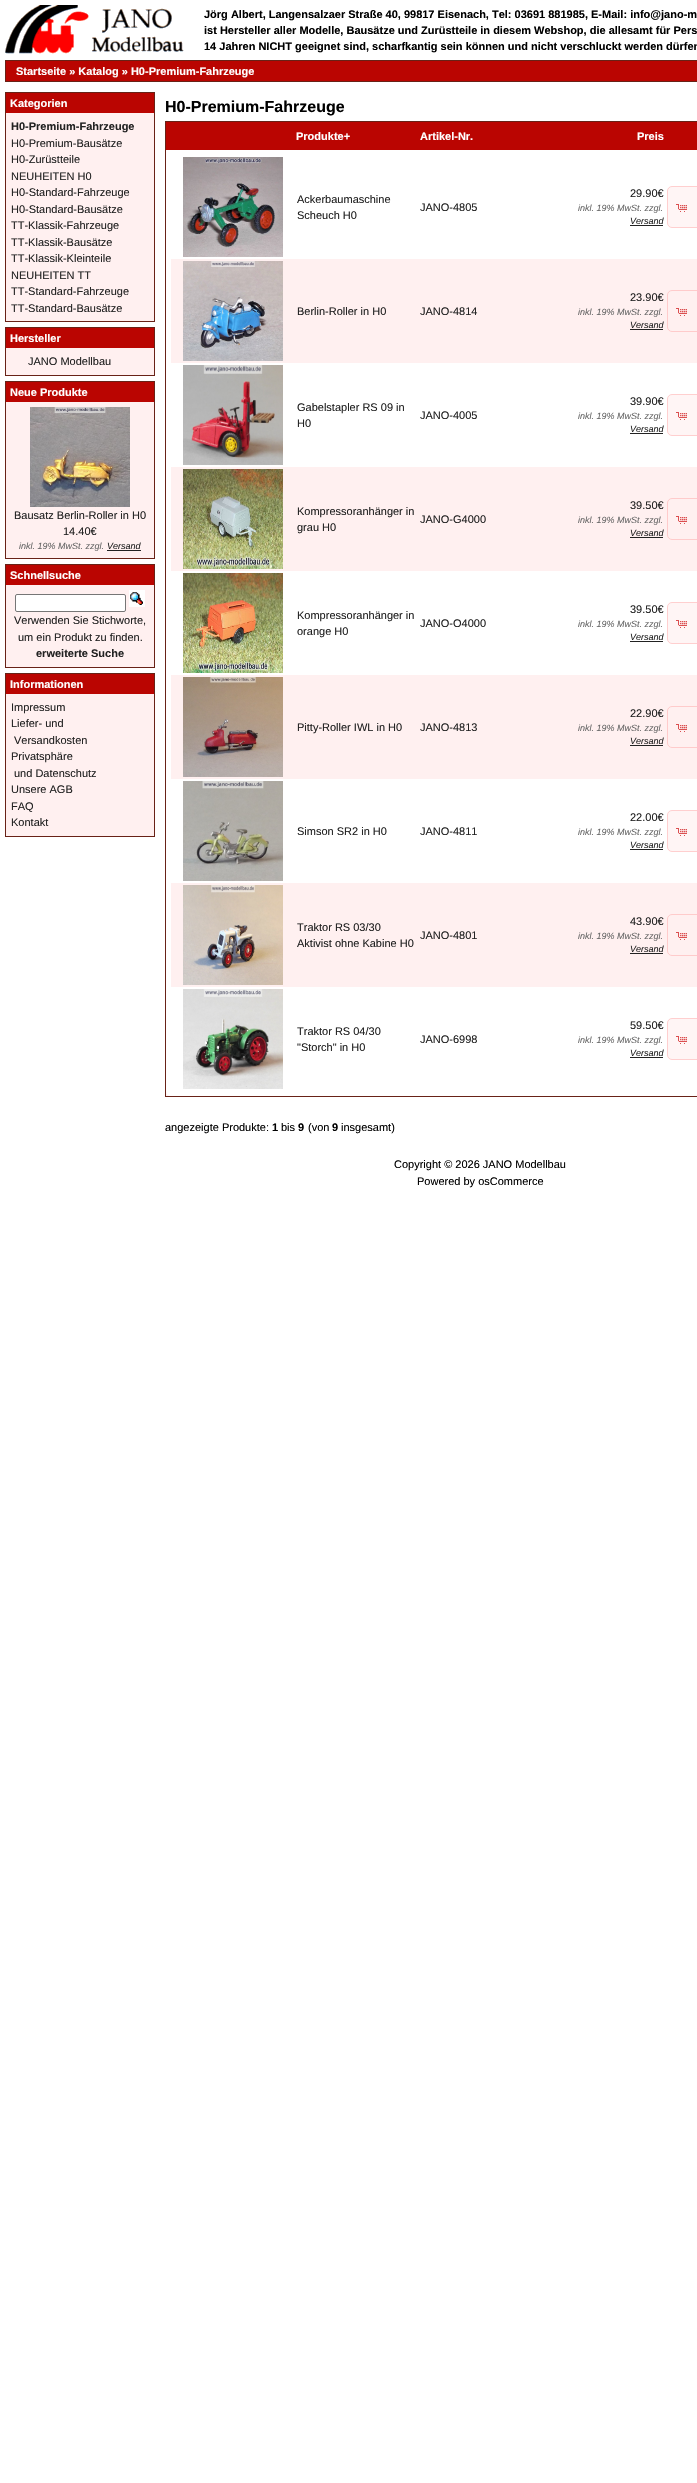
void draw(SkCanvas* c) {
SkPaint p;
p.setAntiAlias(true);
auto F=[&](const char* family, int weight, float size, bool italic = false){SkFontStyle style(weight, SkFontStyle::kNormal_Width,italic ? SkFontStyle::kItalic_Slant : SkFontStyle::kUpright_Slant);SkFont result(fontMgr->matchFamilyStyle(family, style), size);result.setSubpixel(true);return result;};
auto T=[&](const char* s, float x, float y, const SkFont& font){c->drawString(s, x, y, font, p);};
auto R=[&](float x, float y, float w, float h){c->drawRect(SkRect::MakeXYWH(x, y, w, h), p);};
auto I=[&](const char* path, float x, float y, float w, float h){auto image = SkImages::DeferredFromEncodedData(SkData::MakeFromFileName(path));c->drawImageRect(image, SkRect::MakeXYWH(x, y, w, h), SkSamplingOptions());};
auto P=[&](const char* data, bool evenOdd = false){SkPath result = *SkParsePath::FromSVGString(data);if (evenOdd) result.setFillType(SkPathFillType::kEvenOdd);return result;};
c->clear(0xffffffff);
I("1.png",5,5,179,49);
auto f1 = F("Liberation Sans",700,11);
p.setColor(0xff000000);
T("Jörg Albert, Langensalzaer Straße 40, 99817 Eisenach, Tel: 03691 881985, E-Mail: info@jano-m",204,18,f1);
T("ist Hersteller aller Modelle, Bausätze und Zurüstteile in diesem Webshop, die allesamt für Pers",204,34,f1);
T("14 Jahren NICHT geeignet sind, scharfkantig sein können und nicht verschluckt werden dürfen",204,50,f1);
p.setStroke(true);
p.setStrokeWidth(1);
p.setColor(0xff682217);
c->drawRect(SkRect::MakeXYWH(5.5,60.5,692,21),p);
p.setStroke(false);
p.setColor(0xffba0501);
R(6,61,691,20);
p.setColor(0xffffffff);
T("Startseite » Katalog » H0-Premium-Fahrzeuge",16,75,f1);
p.setColor(0xfffff0f0);
R(6,113,148,208);
p.setStroke(true);
p.setColor(0xff682217);
c->drawRect(SkRect::MakeXYWH(5.5,92.5,149,229),p);
p.setStroke(false);
p.setColor(0xffba0501);
R(6,93,148,20);
p.setColor(0xffffffff);
T("Kategorien",10,107,f1);
p.setColor(0xff222222);
T("H0-Premium-Fahrzeuge",11,130,f1);
auto f2 = F("Liberation Sans",400,11);
T("H0-Premium-Bausätze",11,147,f2);
T("H0-Zurüstteile",11,163,f2);
T("NEUHEITEN H0",11,180,f2);
T("H0-Standard-Fahrzeuge",11,196,f2);
T("H0-Standard-Bausätze",11,213,f2);
T("TT-Klassik-Fahrzeuge",11,229,f2);
T("TT-Klassik-Bausätze",11,246,f2);
T("TT-Klassik-Kleinteile",11,262,f2);
T("NEUHEITEN TT",11,279,f2);
T("TT-Standard-Fahrzeuge",11,295,f2);
T("TT-Standard-Bausätze",11,312,f2);
p.setColor(0xfffff0f0);
R(6,348,148,27);
p.setStroke(true);
p.setColor(0xff682217);
c->drawRect(SkRect::MakeXYWH(5.5,327.5,149,48),p);
p.setStroke(false);
p.setColor(0xffba0501);
R(6,328,148,20);
p.setColor(0xffffffff);
T("Hersteller",10,342,f1);
p.setColor(0xff222222);
T("JANO Modellbau",28,365,f2);
p.setColor(0xfffff0f0);
R(6,402,148,156);
p.setStroke(true);
p.setColor(0xff682217);
c->drawRect(SkRect::MakeXYWH(5.5,381.5,149,177),p);
p.setStroke(false);
p.setColor(0xffba0501);
R(6,382,148,20);
p.setColor(0xffffffff);
T("Neue Produkte",10,396,f1);
I("2.png",30,407,100,100);
p.setColor(0xff222222);
T("Bausatz Berlin-Roller in H0",14,519,f2);
T("14.40€",63,535,f2);
auto f3 = F("Liberation Sans",400,9,true);
p.setColor(0xff666666);
T("inkl. 19% MwSt. zzgl.",19,549,f3);
p.setColor(0xff222222);
T("Versand",107,549,f3);
R(107,550,34,1);
p.setColor(0xfffff0f0);
R(6,585,148,82);
p.setStroke(true);
p.setColor(0xff682217);
c->drawRect(SkRect::MakeXYWH(5.5,564.5,149,103),p);
p.setStroke(false);
p.setColor(0xffba0501);
R(6,565,148,20);
p.setColor(0xffffffff);
T("Schnellsuche",10,579,f1);
c->drawRoundRect(SkRect::MakeXYWH(15.5,594.5,110,17),1.5,1.5,p);
p.setStroke(true);
p.setColor(0xff767676);
c->drawRoundRect(SkRect::MakeXYWH(15.5,594.5,110,17),1.5,1.5,p);
I("3.png",129,590,16,17);
p.setStroke(false);
p.setColor(0xff222222);
T("Verwenden Sie Stichworte,",14,624,f2);
T("um ein Produkt zu finden.",18,641,f2);
T("erweiterte Suche",36,657,f1);
p.setColor(0xfffff0f0);
R(6,694,148,142);
p.setStroke(true);
p.setColor(0xff682217);
c->drawRect(SkRect::MakeXYWH(5.5,673.5,149,163),p);
p.setStroke(false);
p.setColor(0xffba0501);
R(6,674,148,20);
p.setColor(0xffffffff);
T("Informationen",10,688,f1);
p.setColor(0xff222222);
T("Impressum",11,711,f2);
T("Liefer- und",11,727,f2);
T("Versandkosten",14,744,f2);
T("Privatsphäre",11,760,f2);
T("und Datenschutz",14,777,f2);
T("Unsere AGB",11,793,f2);
T("FAQ",11,810,f2);
T("Kontakt",11,826,f2);
auto f4 = F("Liberation Sans",700,16);
p.setColor(0xff000000);
T("H0-Premium-Fahrzeuge",165,112,f4);
p.setColor(0xfffff0f0);
R(166,1091,5,5);
p.setStroke(true);
p.setColor(0xff682217);
c->drawRect(SkRect::MakeXYWH(165.5,121.5,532,975),p);
p.setStroke(false);
p.setColor(0xffba0501);
R(166,122,531,28);
p.setColor(0xffffffff);
T("Produkte+",296,140,f1);
T("Artikel-Nr.",420,140,f1);
T("Preis",637,140,f1);
c->drawPath(P("M166 150h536v941c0 3-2 5-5 5h-526c-3 0-5-2-5-5z"),p);
I("4.png",183,157,100,100);
p.setColor(0xff222222);
T("Ackerbaumaschine",297,203,f2);
T("Scheuch H0",297,219,f2);
T("JANO-4805",420,211,f2);
T("29.90€",630,197,f2);
p.setColor(0xff666666);
T("inkl. 19% MwSt. zzgl.",578,211,f3);
p.setColor(0xff222222);
T("Versand",630,224,f3);
R(630,225,33,1);
p.setColor(0xfffff5f5);
c->drawRoundRect(SkRect::MakeXYWH(667.5,186.5,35,41),4.5,4.5,p);
p.setStroke(true);
p.setColor(0xffffcfcf);
c->drawRoundRect(SkRect::MakeXYWH(667.5,186.5,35,41),4.5,4.5,p);
I("5.png",676,204,11,8);
p.setStroke(false);
p.setColor(0xfffff0f0);
R(171,259,526,104);
I("6.png",183,261,100,100);
p.setColor(0xff222222);
T("Berlin-Roller in H0",297,315,f2);
T("JANO-4814",420,315,f2);
T("23.90€",630,301,f2);
p.setColor(0xff666666);
T("inkl. 19% MwSt. zzgl.",578,315,f3);
p.setColor(0xff222222);
T("Versand",630,328,f3);
R(630,329,33,1);
p.setStroke(true);
p.setColor(0xffffcbcb);
c->drawRoundRect(SkRect::MakeXYWH(667.5,290.5,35,41),4.5,4.5,p);
I("7.png",676,308,11,8);
I("8.png",183,365,100,100);
p.setStroke(false);
p.setColor(0xff222222);
T("Gabelstapler RS 09 in",297,411,f2);
T("H0",297,427,f2);
T("JANO-4005",420,419,f2);
T("39.90€",630,405,f2);
p.setColor(0xff666666);
T("inkl. 19% MwSt. zzgl.",578,419,f3);
p.setColor(0xff222222);
T("Versand",630,432,f3);
R(630,433,33,1);
p.setColor(0xfffff5f5);
c->drawRoundRect(SkRect::MakeXYWH(667.5,394.5,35,41),4.5,4.5,p);
p.setStroke(true);
p.setColor(0xffffcfcf);
c->drawRoundRect(SkRect::MakeXYWH(667.5,394.5,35,41),4.5,4.5,p);
I("5.png",676,412,11,8);
p.setStroke(false);
p.setColor(0xfffff0f0);
R(171,467,526,104);
I("9.png",183,469,100,100);
p.setColor(0xff222222);
T("Kompressoranhänger in",297,515,f2);
T("grau H0",297,531,f2);
T("JANO-G4000",420,523,f2);
T("39.50€",630,509,f2);
p.setColor(0xff666666);
T("inkl. 19% MwSt. zzgl.",578,523,f3);
p.setColor(0xff222222);
T("Versand",630,536,f3);
R(630,537,33,1);
p.setStroke(true);
p.setColor(0xffffcbcb);
c->drawRoundRect(SkRect::MakeXYWH(667.5,498.5,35,41),4.5,4.5,p);
I("7.png",676,516,11,8);
I("10.png",183,573,100,100);
p.setStroke(false);
p.setColor(0xff222222);
T("Kompressoranhänger in",297,619,f2);
T("orange H0",297,635,f2);
T("JANO-O4000",420,627,f2);
T("39.50€",630,613,f2);
p.setColor(0xff666666);
T("inkl. 19% MwSt. zzgl.",578,627,f3);
p.setColor(0xff222222);
T("Versand",630,640,f3);
R(630,641,33,1);
p.setColor(0xfffff5f5);
c->drawRoundRect(SkRect::MakeXYWH(667.5,602.5,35,41),4.5,4.5,p);
p.setStroke(true);
p.setColor(0xffffcfcf);
c->drawRoundRect(SkRect::MakeXYWH(667.5,602.5,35,41),4.5,4.5,p);
I("5.png",676,620,11,8);
p.setStroke(false);
p.setColor(0xfffff0f0);
R(171,675,526,104);
I("11.png",183,677,100,100);
p.setColor(0xff222222);
T("Pitty-Roller IWL in H0",297,731,f2);
T("JANO-4813",420,731,f2);
T("22.90€",630,717,f2);
p.setColor(0xff666666);
T("inkl. 19% MwSt. zzgl.",578,731,f3);
p.setColor(0xff222222);
T("Versand",630,744,f3);
R(630,745,33,1);
p.setStroke(true);
p.setColor(0xffffcbcb);
c->drawRoundRect(SkRect::MakeXYWH(667.5,706.5,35,41),4.5,4.5,p);
I("7.png",676,724,11,8);
I("12.png",183,781,100,100);
p.setStroke(false);
p.setColor(0xff222222);
T("Simson SR2 in H0",297,835,f2);
T("JANO-4811",420,835,f2);
T("22.00€",630,821,f2);
p.setColor(0xff666666);
T("inkl. 19% MwSt. zzgl.",578,835,f3);
p.setColor(0xff222222);
T("Versand",630,848,f3);
R(630,849,33,1);
p.setColor(0xfffff5f5);
c->drawRoundRect(SkRect::MakeXYWH(667.5,810.5,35,41),4.5,4.5,p);
p.setStroke(true);
p.setColor(0xffffcfcf);
c->drawRoundRect(SkRect::MakeXYWH(667.5,810.5,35,41),4.5,4.5,p);
I("5.png",676,828,11,8);
p.setStroke(false);
p.setColor(0xfffff0f0);
R(171,883,526,104);
I("13.png",183,885,100,100);
p.setColor(0xff222222);
T("Traktor RS 03/30",297,931,f2);
T("Aktivist ohne Kabine H0",297,947,f2);
T("JANO-4801",420,939,f2);
T("43.90€",630,925,f2);
p.setColor(0xff666666);
T("inkl. 19% MwSt. zzgl.",578,939,f3);
p.setColor(0xff222222);
T("Versand",630,952,f3);
R(630,953,33,1);
p.setStroke(true);
p.setColor(0xffffcbcb);
c->drawRoundRect(SkRect::MakeXYWH(667.5,914.5,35,41),4.5,4.5,p);
I("7.png",676,932,11,8);
I("14.png",183,989,100,100);
p.setStroke(false);
p.setColor(0xff222222);
T("Traktor RS 04/30",297,1035,f2);
T("\"Storch\" in H0",297,1051,f2);
T("JANO-6998",420,1043,f2);
T("59.50€",630,1029,f2);
p.setColor(0xff666666);
T("inkl. 19% MwSt. zzgl.",578,1043,f3);
p.setColor(0xff222222);
T("Versand",630,1056,f3);
R(630,1057,33,1);
p.setColor(0xfffff5f5);
c->drawRoundRect(SkRect::MakeXYWH(667.5,1018.5,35,41),4.5,4.5,p);
p.setStroke(true);
p.setColor(0xffffcfcf);
c->drawRoundRect(SkRect::MakeXYWH(667.5,1018.5,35,41),4.5,4.5,p);
I("5.png",676,1036,11,8);
p.setStroke(false);
p.setColor(0xff000000);
T("angezeigte Produkte:",165,1131,f2);
T("1",272,1131,f1);
T("bis",281,1131,f2);
T("9",298,1131,f1);
T("(von",308,1131,f2);
T("9",332,1131,f1);
T("insgesamt)",341,1131,f2);
T("Copyright © 2026 JANO Modellbau",394,1168,f2);
T("Powered by osCommerce",417,1185,f2);
}
